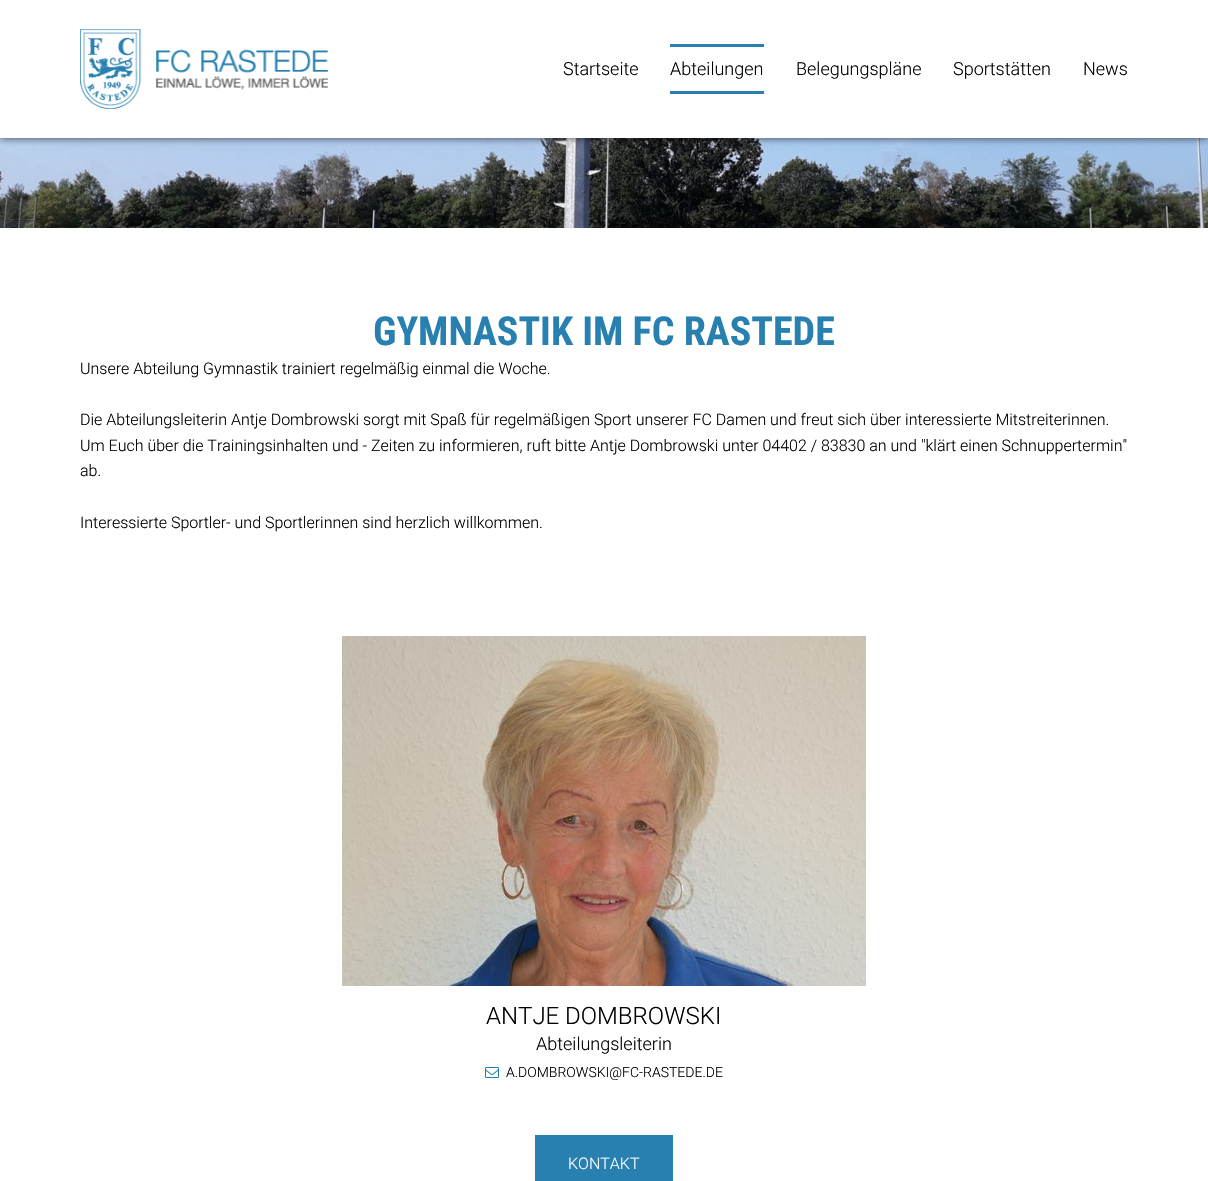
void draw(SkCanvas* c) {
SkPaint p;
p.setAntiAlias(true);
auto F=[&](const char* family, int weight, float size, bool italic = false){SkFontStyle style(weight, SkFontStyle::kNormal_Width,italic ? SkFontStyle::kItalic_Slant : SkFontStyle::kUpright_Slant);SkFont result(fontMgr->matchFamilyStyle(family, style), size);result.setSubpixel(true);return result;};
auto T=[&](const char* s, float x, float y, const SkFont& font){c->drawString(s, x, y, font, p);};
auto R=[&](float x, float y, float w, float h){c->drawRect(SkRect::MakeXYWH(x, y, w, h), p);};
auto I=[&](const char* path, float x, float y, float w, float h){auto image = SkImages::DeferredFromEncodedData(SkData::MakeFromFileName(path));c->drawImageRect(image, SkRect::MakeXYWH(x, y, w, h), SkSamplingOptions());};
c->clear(0xffffffff);
I("2.png",0,138,1208,90);
p.setColor(0xb3000000);
p.setMaskFilter(SkMaskFilter::MakeBlur(kNormal_SkBlurStyle, 4));
c->drawRect(SkRect::MakeXYWH(0,0,1208,138),p);
p.setMaskFilter(nullptr);
p.setColor(0xffffffff);
R(0,0,1208,138);
I("1.png",80,29,248,80);
auto f1 = F("Roboto",300,18);
p.setColor(0xff000000);
T("Startseite",563,75,f1);
p.setColor(0xff2780af);
R(670,44,94,3);
p.setColor(0xff000000);
T("Abteilungen",670,75,f1);
p.setColor(0xff2780af);
R(670,91,94,3);
p.setColor(0xff000000);
T("Belegungspläne",796,75,f1);
T("Sportstätten",953,75,f1);
T("News",1083,75,f1);
auto f2 = F("Roboto Condensed",700,40);
p.setColor(0xff2780af);
T("GYMNASTIK IM FC RASTEDE",373,345,f2);
auto f3 = F("Roboto",300,16);
p.setColor(0xff000000);
T("Unsere Abteilung Gymnastik trainiert regelmäßig einmal die Woche.",80,374,f3);
T("Die Abteilungsleiterin Antje Dombrowski sorgt mit Spaß für regelmäßigen Sport unserer FC Damen und freut sich über interessierte Mitstreiterinnen.",80,425,f3);
T("Um Euch über die Trainingsinhalten und - Zeiten zu informieren, ruft bitte Antje Dombrowski unter 04402 / 83830 an und \"klärt einen Schnuppertermin\"",80,451,f3);
T("ab.",80,476,f3);
T("Interessierte Sportler- und Sportlerinnen sind herzlich willkommen.",80,528,f3);
I("3.png",342,636,524,350);
auto f4 = F("Roboto",300,24);
T("ANTJE DOMBROWSKI",486,1024,f4);
T("Abteilungsleiterin",536,1050,f1);
I("4.png",485,1067,14,11);
auto f5 = F("Roboto",300,14);
T("A.DOMBROWSKI@FC-RASTEDE.DE",506,1077,f5);
p.setColor(0xff2780af);
R(535,1135,138,46);
p.setColor(0xffffffff);
T("KONTAKT",568,1169,f3);
}
